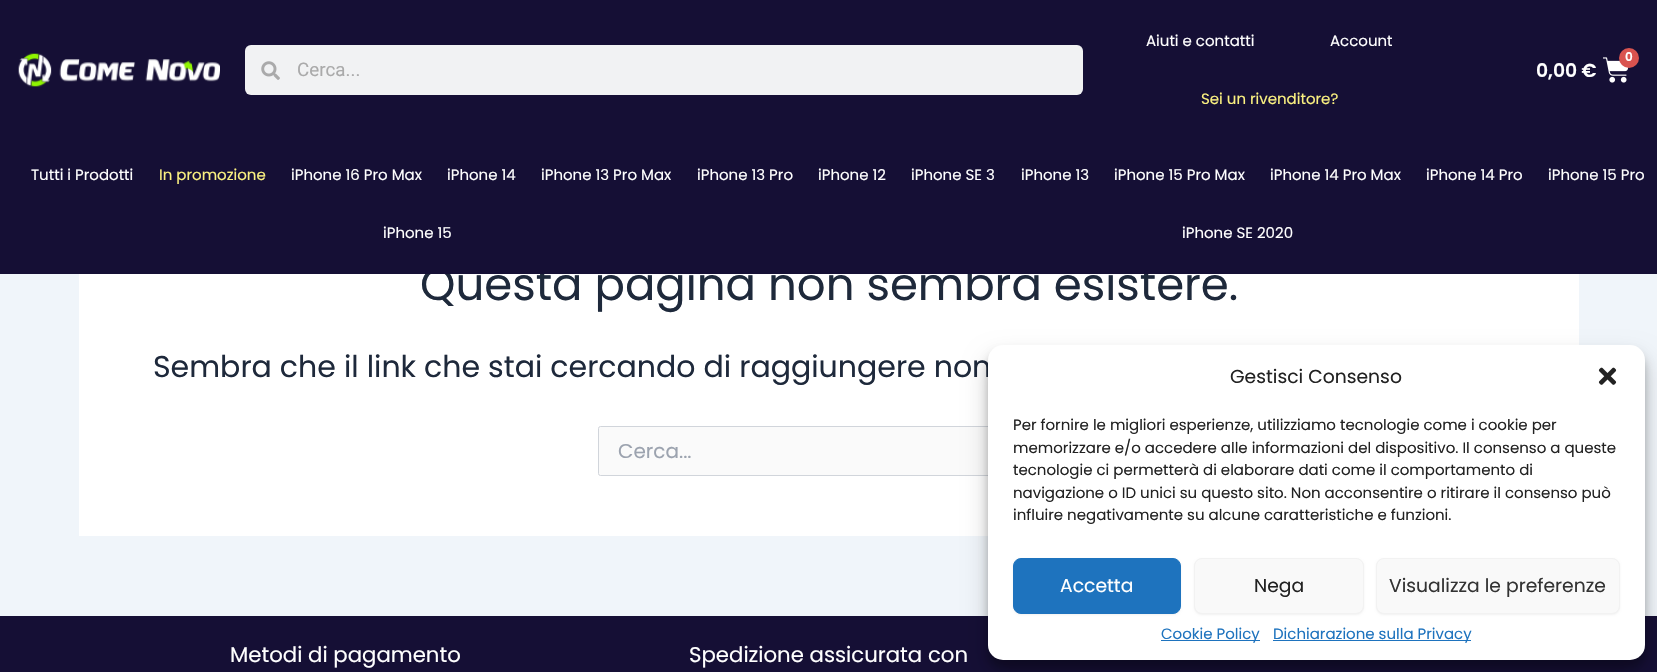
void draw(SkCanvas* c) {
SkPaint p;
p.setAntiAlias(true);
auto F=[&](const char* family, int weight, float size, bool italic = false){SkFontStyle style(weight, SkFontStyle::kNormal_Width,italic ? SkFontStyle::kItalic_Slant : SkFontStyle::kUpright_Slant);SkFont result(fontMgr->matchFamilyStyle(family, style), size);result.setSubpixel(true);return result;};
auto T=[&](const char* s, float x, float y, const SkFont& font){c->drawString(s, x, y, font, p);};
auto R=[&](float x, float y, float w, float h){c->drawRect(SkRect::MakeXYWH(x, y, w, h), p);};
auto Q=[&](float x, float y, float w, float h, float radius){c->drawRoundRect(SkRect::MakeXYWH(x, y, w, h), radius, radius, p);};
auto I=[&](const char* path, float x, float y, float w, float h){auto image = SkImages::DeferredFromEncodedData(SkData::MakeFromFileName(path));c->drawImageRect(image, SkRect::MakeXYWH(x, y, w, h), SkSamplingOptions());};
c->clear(0xfff0f5fa);
p.setColor(0xffffffff);
R(79,274,1500,262);
auto f1 = F("Poppins",400,45);
p.setColor(0xff1e293b);
T("Questa pagina non sembra esistere.",420,300,f1);
p.setColor(0xff150f35);
R(0,0,1657,274);
I("1.png",18,53,202,34);
p.setColor(0xfff1f2f3);
Q(245,45,838,50,6);
I("2.png",261,61,19,19);
auto f2 = F("Roboto",400,18.75);
p.setColor(0xffaaaaaa);
T("Cerca...",297,76,f2);
auto f3 = F("Poppins",400,15);
p.setColor(0xffffffff);
T("Aiuti e contatti",1146,46,f3);
T("Account",1330,46,f3);
p.setColor(0xfffbf180);
T("Sei un rivenditore?",1201,104,f3);
I("3.png",1603,57,26,26);
p.setColor(0xffd9534f);
c->drawCircle(1629,58,10,p);
auto f4 = F("Poppins",600,12);
p.setColor(0xffffffff);
T("0",1625,61,f4);
auto f5 = F("Poppins",600,18.75);
T("0,00 €",1536,77,f5);
T("Tutti i Prodotti",31,180,f3);
p.setColor(0xfffbf180);
T("In promozione",159,180,f3);
p.setColor(0xffffffff);
T("iPhone 16 Pro Max",291,180,f3);
T("iPhone 14",447,180,f3);
T("iPhone 13 Pro Max",541,180,f3);
T("iPhone 13 Pro",697,180,f3);
T("iPhone 12",818,180,f3);
T("iPhone SE 3",911,180,f3);
T("iPhone 13",1021,180,f3);
T("iPhone 15 Pro Max",1114,180,f3);
T("iPhone 14 Pro Max",1270,180,f3);
T("iPhone 14 Pro",1426,180,f3);
T("iPhone 15 Pro",1548,180,f3);
T("iPhone 15",383,238,f3);
T("iPhone SE 2020",1182,238,f3);
auto f6 = F("Poppins",400,30);
p.setColor(0xff1e293b);
T("Sembra che il link che stai cercando di raggiungere non",153,377,f6);
p.setColor(0xfffafafa);
c->drawRoundRect(SkRect::MakeXYWH(598.5,426.5,461,49),2,2,p);
p.setStroke(true);
p.setStrokeWidth(1);
p.setColor(0xffd1d5db);
c->drawRoundRect(SkRect::MakeXYWH(598.5,426.5,461,49),2,2,p);
auto f7 = F("Poppins",400,20);
p.setStroke(false);
p.setColor(0xff9ca3af);
T("Cerca...",618,458,f7);
p.setColor(0xff150f35);
R(0,616,1657,56);
auto f8 = F("Poppins",400,21.25);
p.setColor(0xffffffff);
T("Metodi di pagamento",230,662,f8);
T("Spedizione assicurata con",689,662,f8);
p.setColor(0x3b000000);
p.setMaskFilter(SkMaskFilter::MakeBlur(kNormal_SkBlurStyle, 4));
c->drawRoundRect(SkRect::MakeXYWH(988,353,657,315),15,15,p);
p.setMaskFilter(nullptr);
p.setColor(0x30000000);
p.setMaskFilter(SkMaskFilter::MakeBlur(kNormal_SkBlurStyle, 12.5));
c->drawRoundRect(SkRect::MakeXYWH(988,358,657,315),15,15,p);
p.setMaskFilter(nullptr);
p.setColor(0xffffffff);
Q(988,345,657,315,15);
auto f9 = F("Poppins",400,18.75);
p.setColor(0xff222222);
T("Gestisci Consenso",1230,383,f9);
I("4.png",1598,367,19,18);
T("Per fornire le migliori esperienze, utilizziamo tecnologie come i cookie per",1013,430,f3);
T("memorizzare e/o accedere alle informazioni del dispositivo. Il consenso a queste",1013,453,f3);
T("tecnologie ci permetterà di elaborare dati come il comportamento di",1013,475,f3);
T("navigazione o ID unici su questo sito. Non acconsentire o ritirare il consenso può",1013,498,f3);
T("influire negativamente su alcune caratteristiche e funzioni.",1013,520,f3);
p.setColor(0x0d000000);
p.setMaskFilter(SkMaskFilter::MakeBlur(kNormal_SkBlurStyle, 1));
c->drawRoundRect(SkRect::MakeXYWH(1013,559,168,56),8,8,p);
p.setMaskFilter(nullptr);
p.setColor(0xff1e73be);
c->drawRoundRect(SkRect::MakeXYWH(1013.5,558.5,167,55),7.5,7.5,p);
p.setStroke(true);
c->drawRoundRect(SkRect::MakeXYWH(1013.5,558.5,167,55),7.5,7.5,p);
p.setStroke(false);
p.setColor(0xffffffff);
T("Accetta",1060,592,f9);
p.setColor(0x0d000000);
p.setMaskFilter(SkMaskFilter::MakeBlur(kNormal_SkBlurStyle, 1));
c->drawRoundRect(SkRect::MakeXYWH(1194,559,170,56),8,8,p);
p.setMaskFilter(nullptr);
p.setColor(0xfff9f9f9);
c->drawRoundRect(SkRect::MakeXYWH(1194.5,558.5,169,55),7.5,7.5,p);
p.setStroke(true);
p.setColor(0xfff2f2f2);
c->drawRoundRect(SkRect::MakeXYWH(1194.5,558.5,169,55),7.5,7.5,p);
p.setStroke(false);
p.setColor(0xff222222);
T("Nega",1254,592,f9);
p.setColor(0x0d000000);
p.setMaskFilter(SkMaskFilter::MakeBlur(kNormal_SkBlurStyle, 1));
c->drawRoundRect(SkRect::MakeXYWH(1376,559,244,56),8,8,p);
p.setMaskFilter(nullptr);
p.setColor(0xfff9f9f9);
c->drawRoundRect(SkRect::MakeXYWH(1376.5,558.5,243,55),7.5,7.5,p);
p.setStroke(true);
p.setColor(0xfff2f2f2);
c->drawRoundRect(SkRect::MakeXYWH(1376.5,558.5,243,55),7.5,7.5,p);
p.setStroke(false);
p.setColor(0xff333333);
T("Visualizza le preferenze",1389,592,f9);
p.setColor(0xff1e73be);
R(1161,640,99,1);
T("Cookie Policy",1161,639,f3);
R(1273,640,198,1);
T("Dichiarazione sulla Privacy",1273,639,f3);
}
